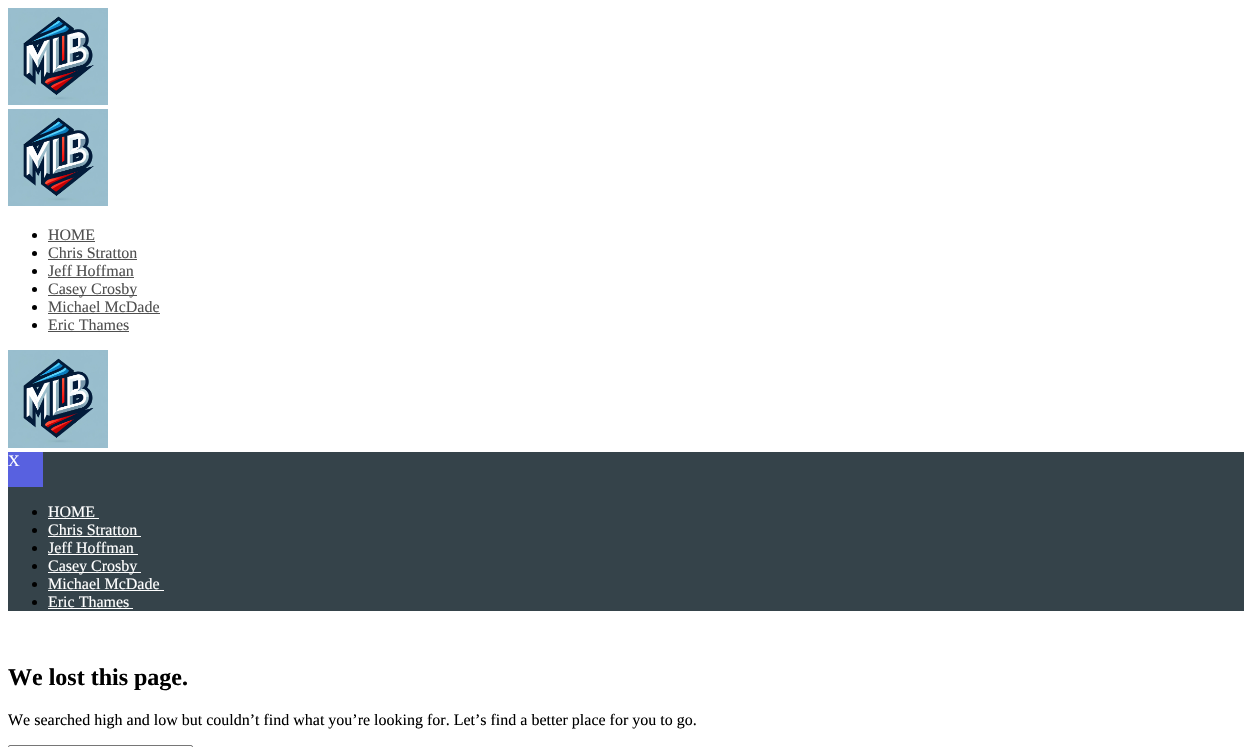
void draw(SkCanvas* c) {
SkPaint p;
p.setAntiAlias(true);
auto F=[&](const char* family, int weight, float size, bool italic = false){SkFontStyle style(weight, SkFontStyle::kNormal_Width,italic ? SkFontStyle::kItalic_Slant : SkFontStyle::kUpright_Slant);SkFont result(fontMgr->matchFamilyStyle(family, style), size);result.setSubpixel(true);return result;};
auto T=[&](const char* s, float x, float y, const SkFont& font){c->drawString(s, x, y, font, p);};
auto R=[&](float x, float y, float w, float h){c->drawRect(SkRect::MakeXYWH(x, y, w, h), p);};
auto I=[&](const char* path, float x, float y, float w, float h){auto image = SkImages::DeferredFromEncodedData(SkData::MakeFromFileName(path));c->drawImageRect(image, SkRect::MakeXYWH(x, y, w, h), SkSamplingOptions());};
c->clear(0xffffffff);
I("1.png",8,8,100,97);
I("1.png",8,109,100,97);
p.setColor(0xff000000);
c->drawCircle(34.5,235.5,2.5,p);
auto f1 = F("Liberation Serif",400,16);
p.setColor(0xff505050);
T("HOME",48,240,f1);
R(48,241,47,1);
p.setColor(0xff000000);
c->drawCircle(34.5,253.5,2.5,p);
p.setColor(0xff505050);
T("Chris Stratton",48,258,f1);
R(48,259,89,1);
p.setColor(0xff000000);
c->drawCircle(34.5,271.5,2.5,p);
p.setColor(0xff505050);
T("Jeff Hoffman",48,276,f1);
R(48,277,86,1);
p.setColor(0xff000000);
c->drawCircle(34.5,289.5,2.5,p);
p.setColor(0xff505050);
R(48,295,89,1);
T("Casey Crosby",48,294,f1);
p.setColor(0xff000000);
c->drawCircle(34.5,307.5,2.5,p);
p.setColor(0xff505050);
T("Michael McDade",48,312,f1);
R(48,313,112,1);
p.setColor(0xff000000);
c->drawCircle(34.5,325.5,2.5,p);
p.setColor(0xff505050);
T("Eric Thames",48,330,f1);
R(48,331,81,1);
I("2.png",8,350,100,98);
p.setColor(0xff35434a);
R(8,452,1236,159);
p.setColor(0xff5861e0);
R(8,452,35,35);
p.setColor(0xffffffff);
T("X",8,466,f1);
p.setColor(0xff000000);
c->drawCircle(34.5,512.5,2.5,p);
p.setColor(0xffffffff);
T("HOME",48,517,f1);
R(48,518,51,1);
p.setColor(0xff000000);
c->drawCircle(34.5,530.5,2.5,p);
p.setColor(0xffffffff);
T("Chris Stratton",48,535,f1);
R(48,536,93,1);
p.setColor(0xff000000);
c->drawCircle(34.5,548.5,2.5,p);
p.setColor(0xffffffff);
T("Jeff Hoffman",48,553,f1);
R(48,554,90,1);
p.setColor(0xff000000);
c->drawCircle(34.5,566.5,2.5,p);
p.setColor(0xffffffff);
R(48,572,93,1);
T("Casey Crosby",48,571,f1);
p.setColor(0xff000000);
c->drawCircle(34.5,584.5,2.5,p);
p.setColor(0xffffffff);
T("Michael McDade",48,589,f1);
R(48,590,116,1);
p.setColor(0xff000000);
c->drawCircle(34.5,602.5,2.5,p);
p.setColor(0xffffffff);
T("Eric Thames",48,607,f1);
R(48,608,85,1);
auto f2 = F("Liberation Serif",700,24);
p.setColor(0xff000000);
T("We lost this page.",8,685,f2);
T("We searched high and low but couldn’t find what you’re looking for. Let’s find a better place for you to go.",8,725,f1);
p.setStroke(true);
p.setStrokeWidth(1);
p.setColor(0xff767676);
c->drawRoundRect(SkRect::MakeXYWH(8.5,745.5,184,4),1.5,1.5,p);
}
